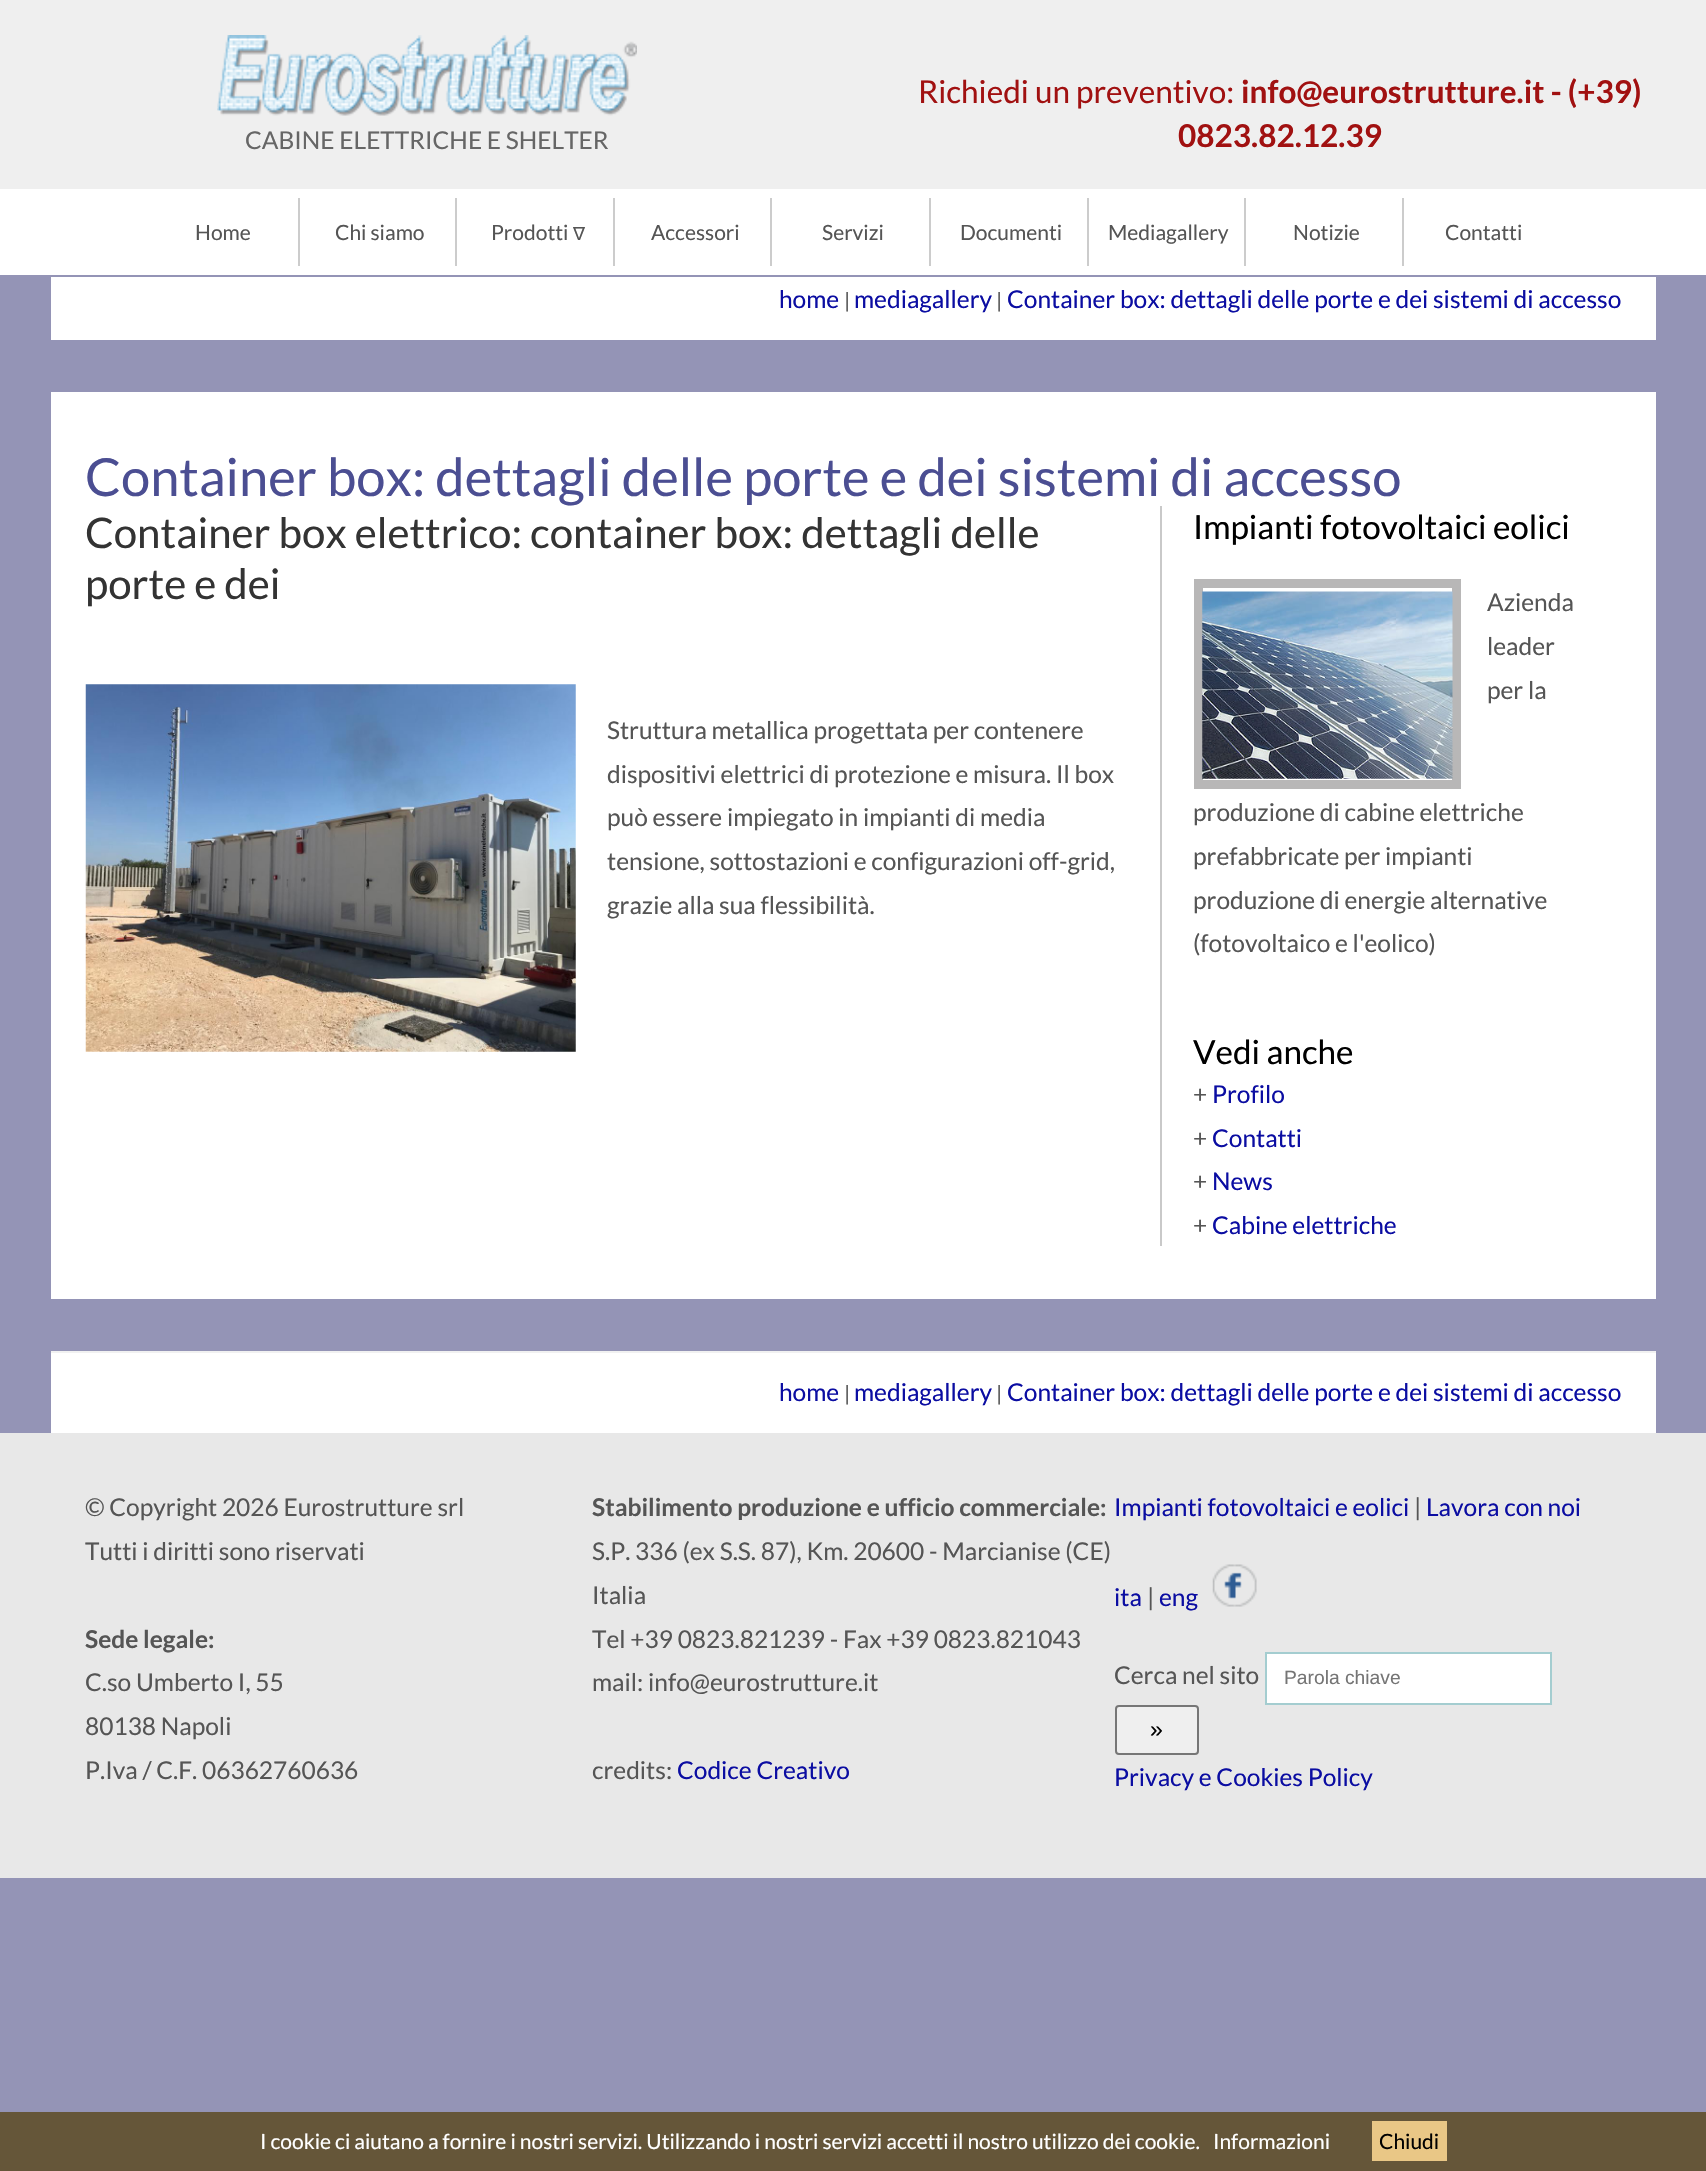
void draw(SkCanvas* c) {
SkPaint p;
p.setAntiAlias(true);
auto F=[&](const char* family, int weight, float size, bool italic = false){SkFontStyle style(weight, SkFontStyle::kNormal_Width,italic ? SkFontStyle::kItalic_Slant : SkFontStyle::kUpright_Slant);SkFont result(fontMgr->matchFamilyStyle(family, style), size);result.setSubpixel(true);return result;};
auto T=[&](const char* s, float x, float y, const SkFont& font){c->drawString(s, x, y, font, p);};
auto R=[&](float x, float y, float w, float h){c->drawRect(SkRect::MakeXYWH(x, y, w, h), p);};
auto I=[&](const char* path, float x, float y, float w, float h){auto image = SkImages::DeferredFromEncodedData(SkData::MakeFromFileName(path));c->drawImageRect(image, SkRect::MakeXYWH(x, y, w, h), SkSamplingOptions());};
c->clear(0xff9494b6);
p.setColor(0xffefefef);
R(0,0,1706,189);
I("1.png",217,35,420,81);
auto f1 = F("Lato",400,24.5);
p.setColor(0xff666666);
T("CABINE ELETTRICHE E SHELTER",245,149,f1);
auto f2 = F("Lato",400,31.5);
p.setColor(0xffa11111);
T("Richiedi un preventivo:",918,103,f2);
auto f3 = F("Lato",700,31.5);
T("info@eurostrutture.it - (+39)",1241,103,f3);
T("0823.82.12.39",1178,147,f3);
p.setColor(0xffffffff);
R(0,189,1706,86);
p.setColor(0xffcccccc);
R(298,198,2,68);
auto f4 = F("Lato",400,21);
p.setColor(0xff555555);
T("Home",195,240,f4);
p.setColor(0xffcccccc);
R(455,198,2,68);
p.setColor(0xff555555);
T("Chi siamo",335,240,f4);
p.setColor(0xffcccccc);
R(613,198,2,68);
p.setColor(0xff555555);
T("Prodotti",491,240,f4);
auto f5 = F("DejaVu Sans",400,18);
T("∇",573,240,f5);
p.setColor(0xffcccccc);
R(770,198,2,68);
p.setColor(0xff555555);
T("Accessori",651,240,f4);
p.setColor(0xffcccccc);
R(929,198,2,68);
p.setColor(0xff555555);
T("Servizi",822,240,f4);
p.setColor(0xffcccccc);
R(1087,198,2,68);
p.setColor(0xff555555);
T("Documenti",960,240,f4);
p.setColor(0xffcccccc);
R(1244,198,2,68);
p.setColor(0xff555555);
T("Mediagallery",1108,240,f4);
p.setColor(0xffcccccc);
R(1402,198,2,68);
p.setColor(0xff555555);
T("Notizie",1293,240,f4);
T("Contatti",1445,240,f4);
p.setColor(0xffffffff);
R(51,277,1605,63);
p.setColor(0xff0b0da2);
T("home",779,308,f1);
p.setColor(0xff555555);
T("|",844,308,f4);
p.setColor(0xff0b0da2);
T("mediagallery",854,308,f1);
p.setColor(0xff555555);
T("|",996,308,f4);
p.setColor(0xff0b0da2);
T("Container box: dettagli delle porte e dei sistemi di accesso",1007,308,f1);
p.setColor(0xffffffff);
R(51,392,1605,907);
auto f6 = F("Lato",400,52.5);
p.setColor(0xff4b4e92);
T("Container box: dettagli delle porte e dei sistemi di accesso",85,496,f6);
auto f7 = F("Lato",400,42);
p.setColor(0xff333333);
T("Container box elettrico: container box: dettagli delle",85,548,f7);
T("porte e dei",85,599,f7);
I("2.png",85,684,491,368);
p.setColor(0xff555555);
T("Struttura metallica progettata per contenere",607,739,f1);
T("dispositivi elettrici di protezione e misura. Il box",607,783,f1);
T("può essere impiegato in impianti di media",607,826,f1);
T("tensione, sottostazioni e configurazioni off-grid,",607,870,f1);
T("grazie alla sua flessibilità.",607,914,f1);
p.setColor(0xffc9c9c9);
R(1160,506,2,740);
auto f8 = F("Lato",400,33.25);
p.setColor(0xff000000);
T("Impianti fotovoltaici eolici",1193,539,f8);
p.setStroke(true);
p.setStrokeWidth(9);
p.setColor(0xffb8b7b7);
c->drawRect(SkRect::MakeXYWH(1198.5,583.5,258,201),p);
I("3.png",1202,591,251,188);
p.setStroke(false);
p.setColor(0xff555555);
T("Azienda",1487,611,f1);
T("leader",1487,655,f1);
T("per la",1487,699,f1);
T("produzione di cabine elettriche",1193,821,f1);
T("prefabbricate per impianti",1193,865,f1);
T("produzione di energie alternative",1193,909,f1);
T("(fotovoltaico e l'eolico)",1193,952,f1);
p.setColor(0xff000000);
T("Vedi anche",1193,1064,f8);
p.setColor(0xff555555);
T("+",1193,1103,f1);
p.setColor(0xff0b0da2);
T("Profilo",1212,1103,f1);
p.setColor(0xff555555);
T("+",1193,1147,f1);
p.setColor(0xff0b0da2);
T("Contatti",1212,1147,f1);
p.setColor(0xff555555);
T("+",1193,1190,f1);
p.setColor(0xff0b0da2);
T("News",1212,1190,f1);
p.setColor(0xff555555);
T("+",1193,1234,f1);
p.setColor(0xff0b0da2);
T("Cabine elettriche",1212,1234,f1);
p.setColor(0xffffffff);
R(51,1353,1605,80);
p.setColor(0xfff1f1f1);
R(51,1351,1605,2);
p.setColor(0xff0b0da2);
T("home",779,1401,f1);
p.setColor(0xff555555);
T("|",844,1401,f4);
p.setColor(0xff0b0da2);
T("mediagallery",854,1401,f1);
p.setColor(0xff555555);
T("|",996,1401,f4);
p.setColor(0xff0b0da2);
T("Container box: dettagli delle porte e dei sistemi di accesso",1007,1401,f1);
p.setColor(0xffe8e8e8);
R(0,1433,1706,445);
p.setColor(0xff555555);
T("© Copyright 2026 Eurostrutture srl",85,1516,f1);
T("Tutti i diritti sono riservati",85,1560,f1);
auto f9 = F("Lato",700,24.5);
T("Sede legale:",85,1648,f9);
T("C.so Umberto I, 55",85,1691,f1);
T("80138 Napoli",85,1735,f1);
T("P.Iva / C.F. 06362760636",85,1779,f1);
T("Stabilimento produzione e ufficio commerciale:",592,1516,f9);
T("S.P. 336 (ex S.S. 87), Km. 20600 - Marcianise (CE)",592,1560,f1);
T("Italia",592,1604,f1);
T("Tel +39 0823.821239 - Fax +39 0823.821043",592,1648,f1);
T("mail: info@eurostrutture.it",592,1691,f1);
T("credits:",592,1779,f1);
p.setColor(0xff0b0da2);
T("Codice Creativo",677,1779,f1);
T("Impianti fotovoltaici e eolici",1114,1516,f1);
p.setColor(0xff555555);
T("|",1414,1516,f1);
p.setColor(0xff0b0da2);
T("Lavora con noi",1426,1516,f1);
T("ita",1114,1606,f1);
p.setColor(0xff555555);
T("|",1147,1606,f1);
p.setColor(0xff0b0da2);
T("eng",1159,1606,f1);
I("4.png",1212,1564,45,43);
p.setColor(0xff555555);
T("Cerca nel sito",1114,1684,f1);
p.setColor(0xffffffff);
c->drawRect(SkRect::MakeXYWH(1266,1653,285,51),p);
p.setStroke(true);
p.setStrokeWidth(2);
p.setColor(0xffa4cdd0);
c->drawRect(SkRect::MakeXYWH(1266,1653,285,51),p);
auto f10 = F("Liberation Sans",400,19.25);
p.setStroke(false);
p.setColor(0xff757575);
T("Parola chiave",1284,1684,f10);
p.setColor(0xffefefef);
c->drawRoundRect(SkRect::MakeXYWH(1116,1706,82,48),3,3,p);
p.setStroke(true);
p.setColor(0xff767676);
c->drawRoundRect(SkRect::MakeXYWH(1116,1706,82,48),3,3,p);
auto f11 = F("Liberation Sans",400,23);
p.setStroke(false);
p.setColor(0xff000000);
T("»",1150,1737,f11);
p.setColor(0xff0b0da2);
T("Privacy e Cookies Policy",1114,1786,f1);
p.setColor(0xff655639);
R(0,2112,1706,59);
p.setColor(0xffffffff);
T("I cookie ci aiutano a fornire i nostri servizi. Utilizzando i nostri servizi accetti il nostro utilizzo dei cookie.",260,2149,f4);
T("Informazioni",1213,2149,f4);
p.setColor(0xffe9c786);
R(1372,2121,75,40);
p.setColor(0xff000000);
T("Chiudi",1379,2149,f4);
}
